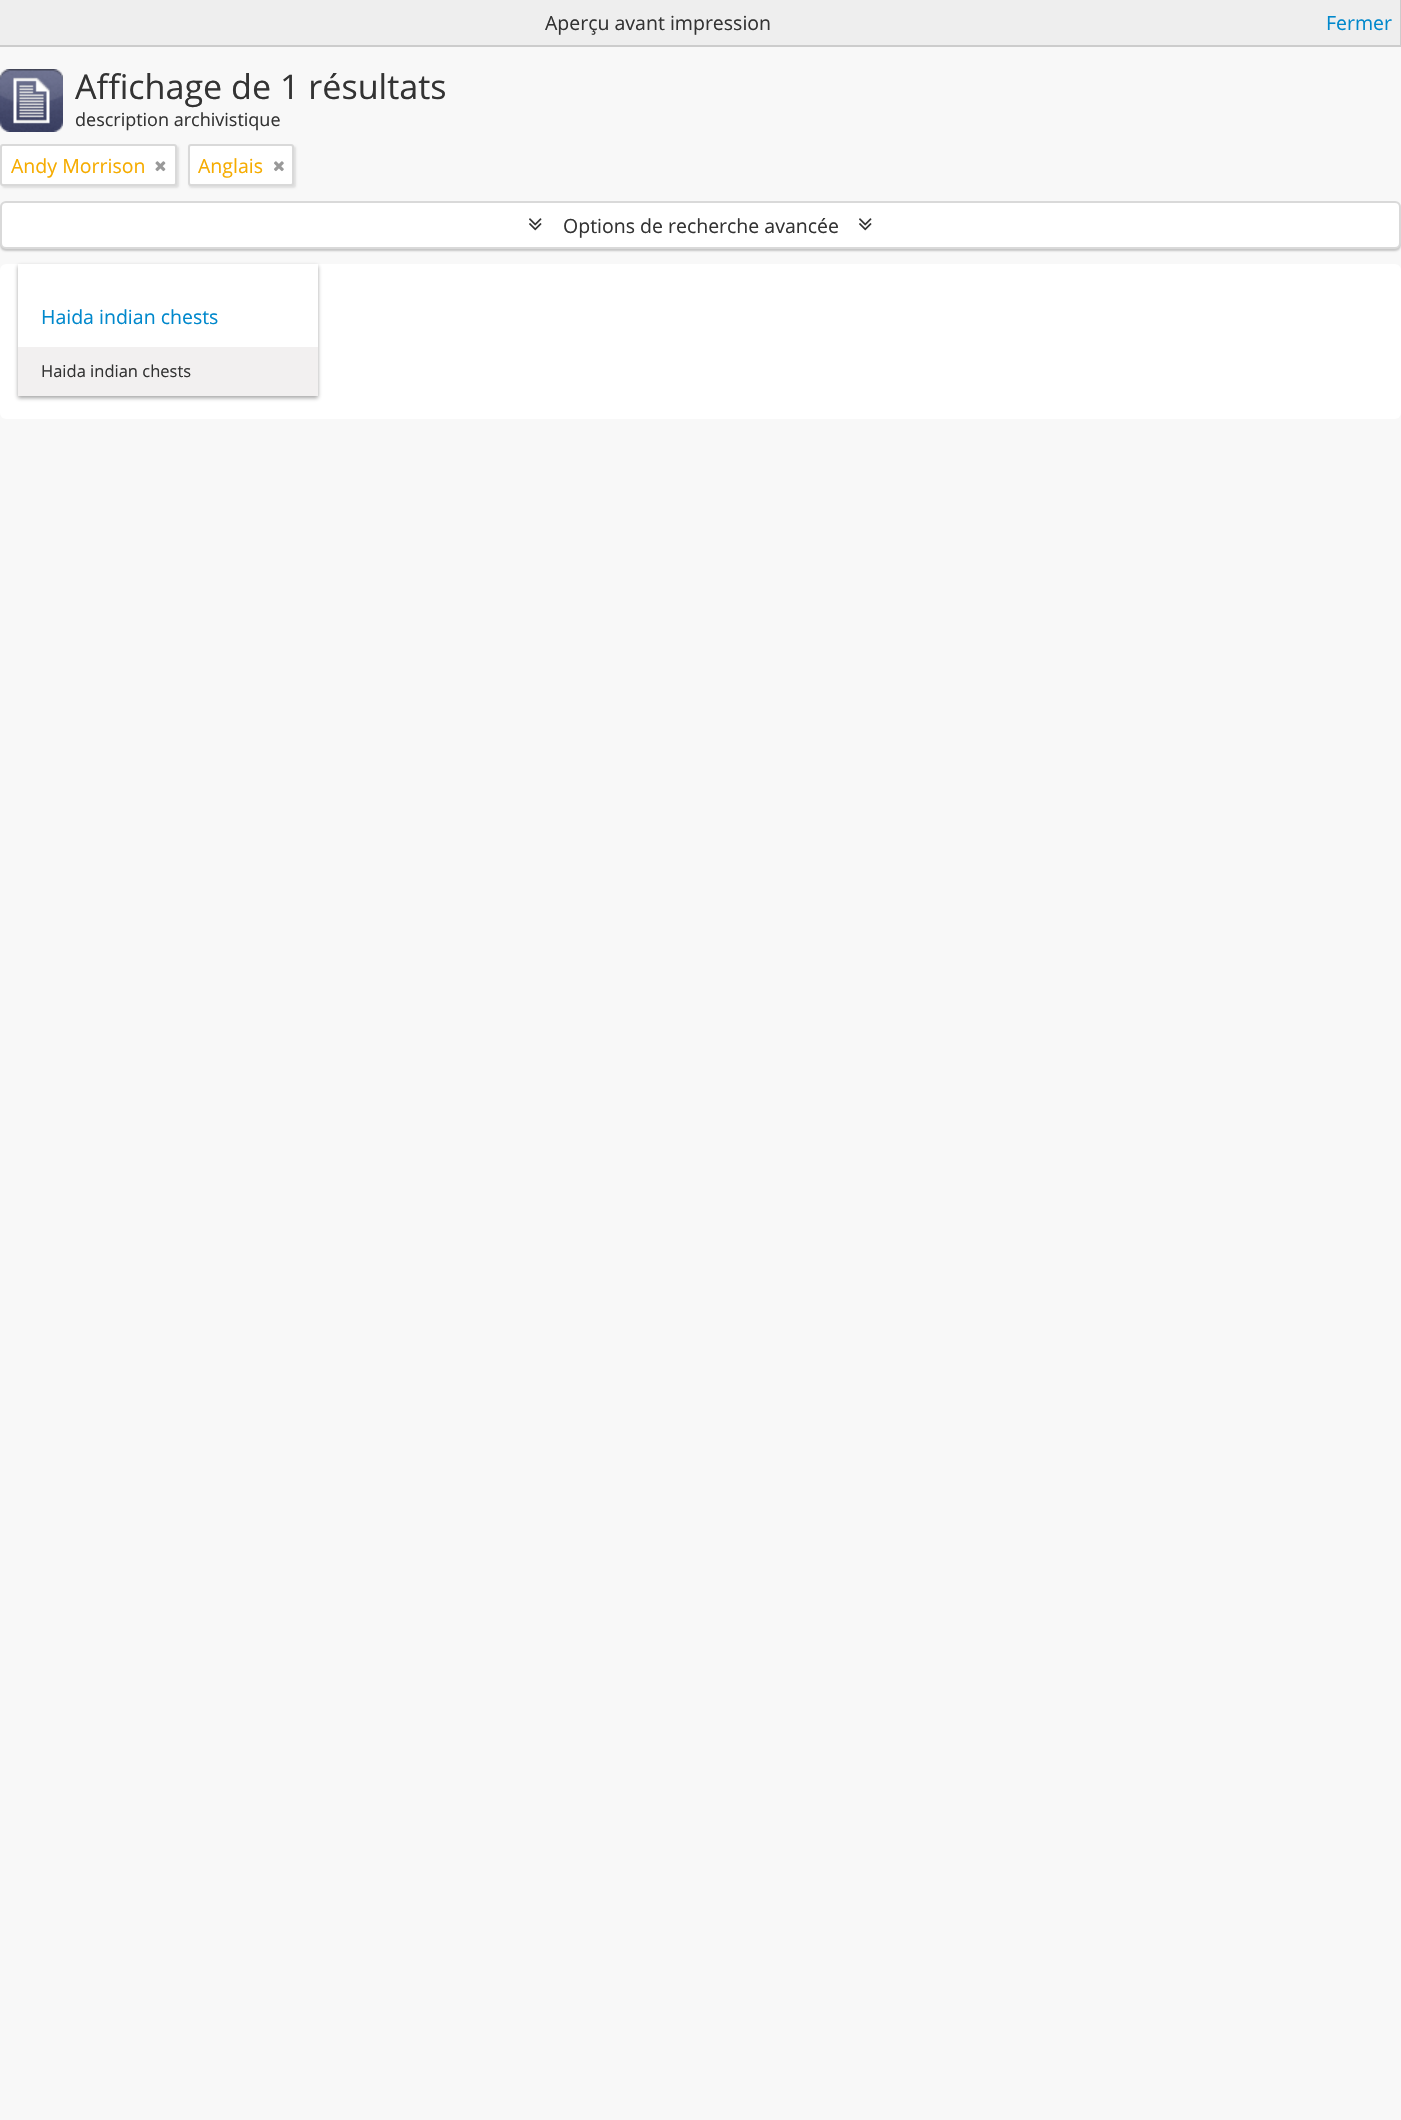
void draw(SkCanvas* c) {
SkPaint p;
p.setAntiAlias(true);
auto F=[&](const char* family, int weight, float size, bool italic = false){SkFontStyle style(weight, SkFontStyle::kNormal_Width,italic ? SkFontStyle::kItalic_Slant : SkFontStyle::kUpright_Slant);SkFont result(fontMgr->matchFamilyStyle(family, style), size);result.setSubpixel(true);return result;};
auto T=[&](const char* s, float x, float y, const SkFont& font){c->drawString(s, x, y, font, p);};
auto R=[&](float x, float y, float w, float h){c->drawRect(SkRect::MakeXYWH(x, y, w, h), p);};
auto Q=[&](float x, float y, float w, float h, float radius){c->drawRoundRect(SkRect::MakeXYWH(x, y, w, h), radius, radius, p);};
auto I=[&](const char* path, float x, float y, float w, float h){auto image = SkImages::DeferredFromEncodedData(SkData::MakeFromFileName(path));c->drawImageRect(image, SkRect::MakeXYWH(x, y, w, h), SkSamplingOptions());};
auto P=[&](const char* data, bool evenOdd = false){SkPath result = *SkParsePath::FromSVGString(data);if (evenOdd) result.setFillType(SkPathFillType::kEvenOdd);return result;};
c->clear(0xfff8f8f8);
p.setColor(0xffeeeeee);
R(0,0,1400,45);
p.setColor(0xffcccccc);
R(1400,0,1,47);
R(0,45,1401,2);
auto f1 = F("Open Sans",400,19.5);
p.setColor(0xff333333);
T("Aperçu avant impression",545,30,f1);
p.setColor(0xff0088cc);
T("Fermer",1326,30,f1);
I("1.png",0,69,63,63);
auto f2 = F("Open Sans",400,34.1);
p.setColor(0xff333333);
T("Affichage de 1 résultats",75,99,f2);
auto f3 = F("Open Sans",400,18);
T("description archivistique",75,126,f3);
p.setColor(0x1a000000);
p.setMaskFilter(SkMaskFilter::MakeBlur(kNormal_SkBlurStyle, 1));
c->drawRoundRect(SkRect::MakeXYWH(2,146,177,42),3,3,p);
p.setMaskFilter(nullptr);
p.setColor(0xffffffff);
c->drawRoundRect(SkRect::MakeXYWH(1,145,175,40),2,2,p);
p.setStroke(true);
p.setStrokeWidth(2);
p.setColor(0xffd9d9d9);
c->drawRoundRect(SkRect::MakeXYWH(1,145,175,40),2,2,p);
p.setStroke(false);
p.setColor(0xfff6ac00);
T("Andy Morrison",11,173,f1);
I("2.png",155,161,11,11);
p.setColor(0x1a000000);
p.setMaskFilter(SkMaskFilter::MakeBlur(kNormal_SkBlurStyle, 1));
c->drawRoundRect(SkRect::MakeXYWH(189,146,107,42),3,3,p);
p.setMaskFilter(nullptr);
p.setColor(0xffffffff);
c->drawRoundRect(SkRect::MakeXYWH(189,145,104,40),2,2,p);
p.setStroke(true);
p.setColor(0xffd9d9d9);
c->drawRoundRect(SkRect::MakeXYWH(189,145,104,40),2,2,p);
p.setStroke(false);
p.setColor(0xfff6ac00);
T("Anglais",198,173,f1);
I("3.png",274,161,10,11);
p.setColor(0x33000000);
p.setMaskFilter(SkMaskFilter::MakeBlur(kNormal_SkBlurStyle, 1));
c->drawRoundRect(SkRect::MakeXYWH(0,203,1401,48),6,6,p);
p.setMaskFilter(nullptr);
p.setColor(0xffffffff);
c->drawRoundRect(SkRect::MakeXYWH(1,202,1399,46),5,5,p);
p.setStroke(true);
p.setColor(0xffd9d9d9);
c->drawRoundRect(SkRect::MakeXYWH(1,202,1399,46),5,5,p);
I("4.png",529,218,13,13);
p.setStroke(false);
p.setColor(0xff333333);
T("Options de recherche avancée",563,233,f1);
I("4.png",859,218,13,13);
p.setColor(0xffffffff);
Q(0,264,1401,155,6);
c->save();
c->clipPath(P("M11 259h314v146h-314zm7 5h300v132h-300z",true),true);
p.setColor(0x66191919);
p.setMaskFilter(SkMaskFilter::MakeBlur(kNormal_SkBlurStyle, 2));
c->drawRect(SkRect::MakeXYWH(18,266,300,132),p);
p.setMaskFilter(nullptr);
c->restore();
p.setColor(0xff0088cc);
T("Haida indian chests",41,324,f1);
p.setColor(0xfff2f0f0);
R(18,347,300,49);
auto f4 = F("Open Sans",400,16.5);
p.setColor(0xff333333);
T("Haida indian chests",41,377,f4);
}
